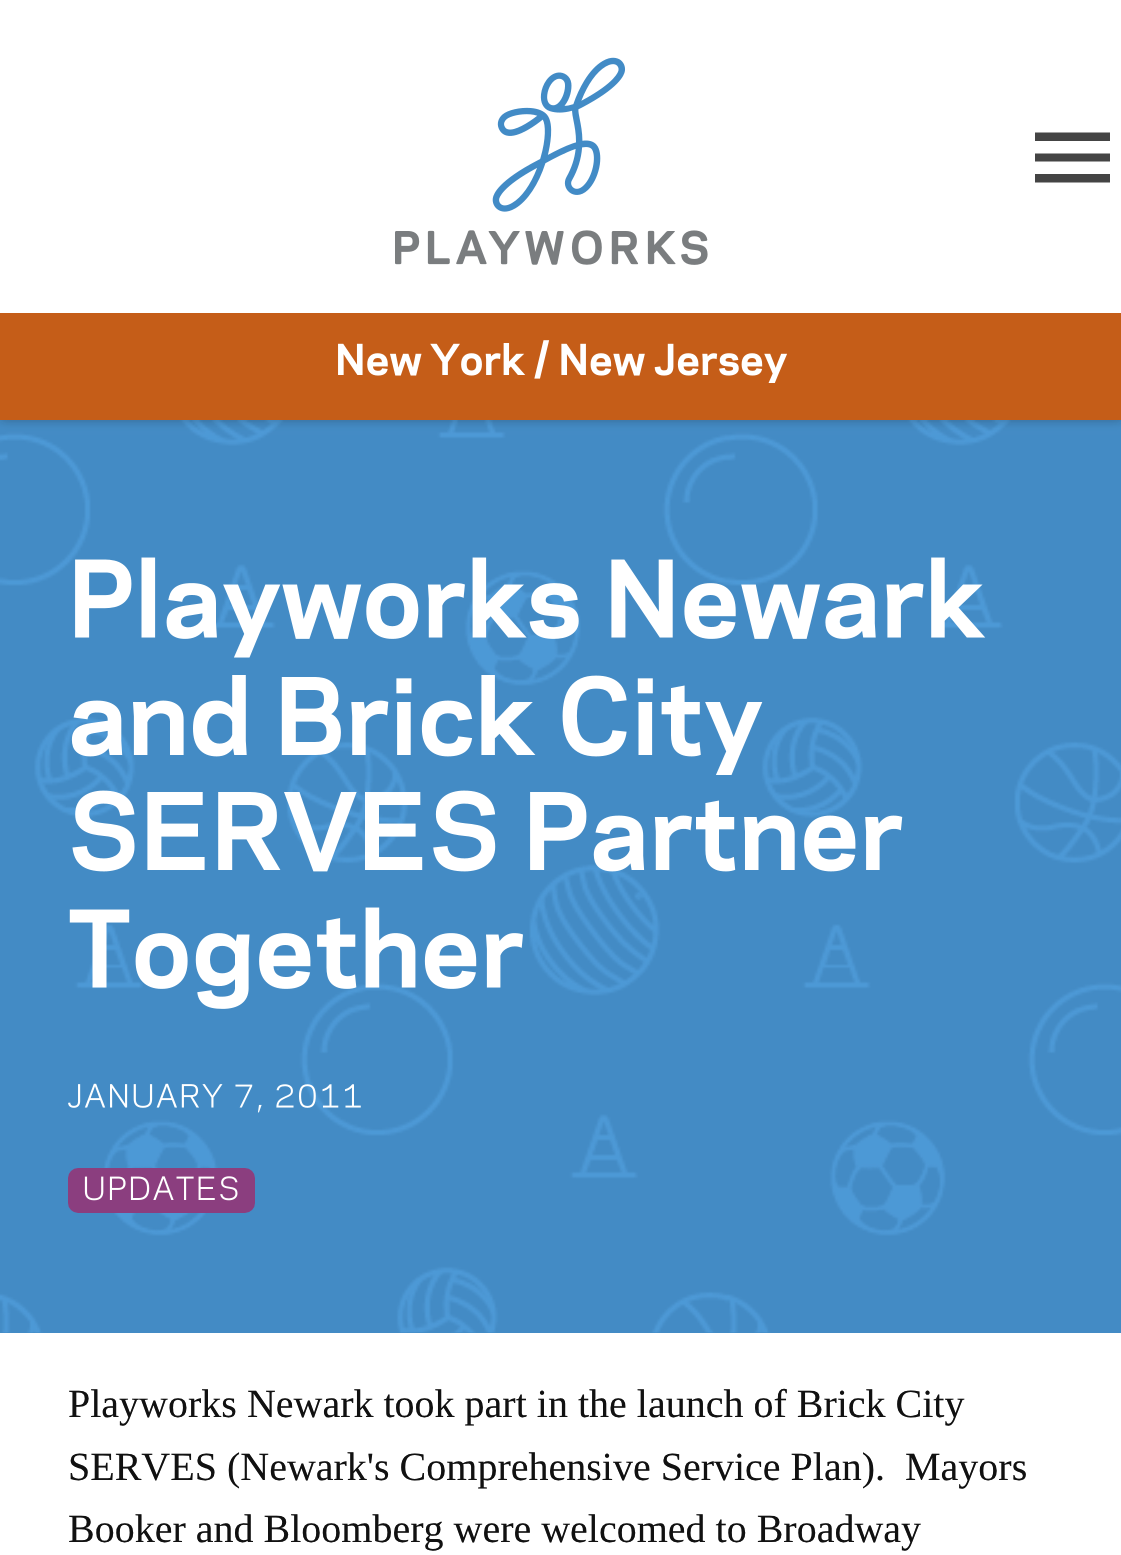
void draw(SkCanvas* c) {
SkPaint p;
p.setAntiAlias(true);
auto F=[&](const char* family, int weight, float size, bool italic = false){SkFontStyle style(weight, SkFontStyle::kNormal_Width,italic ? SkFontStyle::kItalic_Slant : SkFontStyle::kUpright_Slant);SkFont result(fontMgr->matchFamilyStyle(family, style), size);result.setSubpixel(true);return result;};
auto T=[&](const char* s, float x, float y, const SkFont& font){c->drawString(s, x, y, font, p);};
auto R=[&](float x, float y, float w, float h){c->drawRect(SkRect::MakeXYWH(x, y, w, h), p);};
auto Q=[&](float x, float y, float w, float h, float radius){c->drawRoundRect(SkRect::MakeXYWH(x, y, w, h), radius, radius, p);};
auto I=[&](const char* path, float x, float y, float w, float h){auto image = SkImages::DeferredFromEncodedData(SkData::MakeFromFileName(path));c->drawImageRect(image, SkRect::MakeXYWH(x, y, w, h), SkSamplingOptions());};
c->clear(0xffffffff);
p.setColor(0xff438bc5);
R(0,420,1121,913);
I("4.png",0,420,1121,913);
p.setColor(0x4d111111);
p.setMaskFilter(SkMaskFilter::MakeBlur(kNormal_SkBlurStyle, 5));
c->drawRect(SkRect::MakeXYWH(0,0,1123,420),p);
p.setMaskFilter(nullptr);
p.setColor(0xffffffff);
R(0,0,1121,313);
I("1.png",395,57,313,208);
I("2.png",1035,132,75,51);
p.setColor(0xffc55d18);
R(0,313,1121,107);
I("3.png",338,340,449,43);
I("5.png",75,557,911,101);
I("6.png",71,675,692,100);
I("7.png",72,790,831,82);
I("8.png",69,907,454,102);
I("9.png",68,1083,293,30);
p.setColor(0xff8b3e7f);
Q(68,1168,187,45,10);
I("10.png",84,1176,154,25);
auto f1 = F("Liberation Serif",400,40);
p.setColor(0xff111111);
T("Playworks Newark took part in the launch of Brick City",68,1417,f1);
T("SERVES (Newark's Comprehensive Service Plan).  Mayors",68,1480,f1);
T("Booker and Bloomberg were welcomed to Broadway",68,1542,f1);
}
